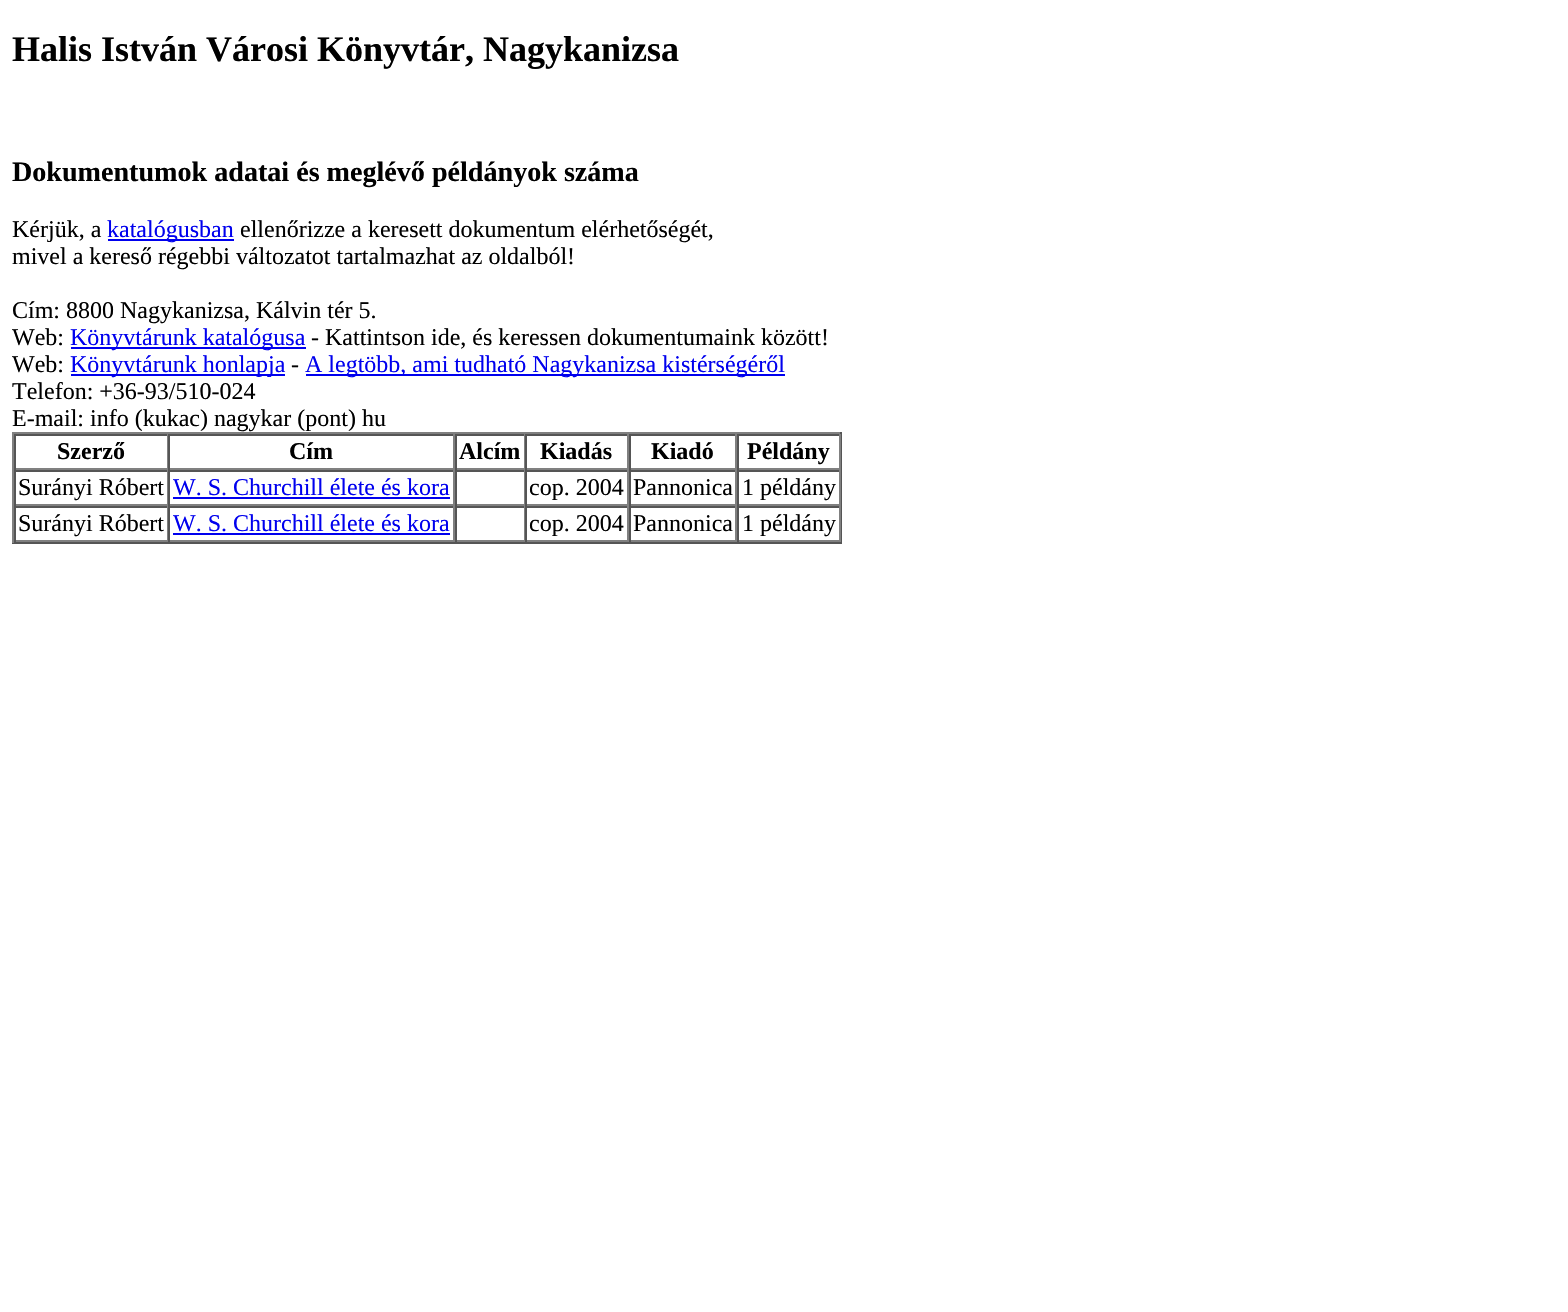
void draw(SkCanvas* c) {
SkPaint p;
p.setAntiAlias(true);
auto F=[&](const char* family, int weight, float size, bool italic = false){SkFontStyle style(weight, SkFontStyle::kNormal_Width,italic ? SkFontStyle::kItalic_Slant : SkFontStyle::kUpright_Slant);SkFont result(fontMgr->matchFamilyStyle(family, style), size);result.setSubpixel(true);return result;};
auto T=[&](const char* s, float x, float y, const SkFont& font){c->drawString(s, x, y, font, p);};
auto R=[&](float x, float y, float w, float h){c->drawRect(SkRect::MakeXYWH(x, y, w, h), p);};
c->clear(0xffffffff);
auto f1 = F("Liberation Serif",700,36);
p.setColor(0xff000000);
T("Halis István Városi Könyvtár, Nagykanizsa",12,61,f1);
auto f2 = F("Liberation Serif",700,28.1);
T("Dokumentumok adatai és meglévő példányok száma",12,181,f2);
auto f3 = F("Liberation Serif",400,24);
T("Kérjük, a",12,237,f3);
p.setColor(0xff0000ee);
R(108,239,126,2);
T("katalógusban",107,237,f3);
p.setColor(0xff000000);
T("ellenőrizze a keresett dokumentum elérhetőségét,",240,237,f3);
T("mivel a kereső régebbi változatot tartalmazhat az oldalból!",12,264,f3);
T("Cím: 8800 Nagykanizsa, Kálvin tér 5.",12,318,f3);
T("Web:",12,345,f3);
p.setColor(0xff0000ee);
R(71,347,235,2);
T("Könyvtárunk katalógusa",70,345,f3);
p.setColor(0xff000000);
T("- Kattintson ide, és keressen dokumentumaink között!",311,345,f3);
T("Web:",12,372,f3);
p.setColor(0xff0000ee);
R(71,374,214,2);
T("Könyvtárunk honlapja",70,372,f3);
p.setColor(0xff000000);
T("-",291,372,f3);
p.setColor(0xff0000ee);
R(306,374,479,2);
T("A legtöbb, ami tudható Nagykanizsa kistérségéről",305,372,f3);
p.setColor(0xff000000);
T("Telefon: +36-93/510-024",12,399,f3);
T("E-mail: info (kukac) nagykar (pont) hu",12,426,f3);
p.setColor(0xff808080);
R(12,432,830,2);
p.setColor(0xff555555);
R(840,432,2,111);
R(12,542,830,2);
p.setColor(0xff808080);
R(12,432,2,111);
p.setColor(0xff555555);
R(14,434,826,2);
p.setColor(0xff808080);
R(167,434,1,36);
R(14,468,154,2);
p.setColor(0xff555555);
R(14,434,2,36);
auto f4 = F("Liberation Serif",700,24);
p.setColor(0xff000000);
T("Szerző",57,459,f4);
p.setColor(0xff808080);
R(453,434,2,36);
R(168,468,287,2);
p.setColor(0xff555555);
R(168,434,2,36);
p.setColor(0xff000000);
T("Cím",289,459,f4);
p.setColor(0xff808080);
R(524,434,1,36);
R(455,468,70,2);
p.setColor(0xff555555);
R(455,434,2,36);
p.setColor(0xff000000);
T("Alcím",459,459,f4);
p.setColor(0xff808080);
R(627,434,2,36);
R(525,468,104,2);
p.setColor(0xff555555);
R(525,434,2,36);
p.setColor(0xff000000);
T("Kiadás",540,459,f4);
p.setColor(0xff808080);
R(735,434,2,36);
R(629,468,108,2);
p.setColor(0xff555555);
R(629,434,2,36);
p.setColor(0xff000000);
T("Kiadó",651,459,f4);
p.setColor(0xff808080);
R(839,434,2,36);
R(737,468,103,2);
p.setColor(0xff555555);
R(737,434,2,36);
p.setColor(0xff000000);
T("Példány",747,459,f4);
p.setColor(0xff555555);
R(14,470,826,2);
p.setColor(0xff808080);
R(167,470,1,36);
R(14,504,154,2);
p.setColor(0xff555555);
R(14,470,2,36);
p.setColor(0xff000000);
T("Surányi Róbert",18,495,f3);
p.setColor(0xff808080);
R(453,470,2,36);
R(168,504,287,2);
p.setColor(0xff555555);
R(168,470,2,36);
p.setColor(0xff0000ee);
T("W. S. Churchill élete és kora",173,495,f3);
R(173,497,277,2);
p.setColor(0xff808080);
R(524,470,1,36);
R(455,504,70,2);
p.setColor(0xff555555);
R(455,470,2,36);
p.setColor(0xff808080);
R(627,470,2,36);
R(525,504,104,2);
p.setColor(0xff555555);
R(525,470,2,36);
p.setColor(0xff000000);
T("cop. 2004",529,495,f3);
p.setColor(0xff808080);
R(735,470,2,36);
R(629,504,108,2);
p.setColor(0xff555555);
R(629,470,2,36);
p.setColor(0xff000000);
T("Pannonica",633,495,f3);
p.setColor(0xff808080);
R(839,470,2,36);
R(737,504,103,2);
p.setColor(0xff555555);
R(737,470,2,36);
p.setColor(0xff000000);
T("1 példány",742,495,f3);
p.setColor(0xff555555);
R(14,506,826,2);
p.setColor(0xff808080);
R(167,506,1,36);
R(14,540,154,2);
p.setColor(0xff555555);
R(14,506,2,36);
p.setColor(0xff000000);
T("Surányi Róbert",18,531,f3);
p.setColor(0xff808080);
R(453,506,2,36);
R(168,540,287,2);
p.setColor(0xff555555);
R(168,506,2,36);
p.setColor(0xff0000ee);
T("W. S. Churchill élete és kora",173,531,f3);
R(173,533,277,2);
p.setColor(0xff808080);
R(524,506,1,36);
R(455,540,70,2);
p.setColor(0xff555555);
R(455,506,2,36);
p.setColor(0xff808080);
R(627,506,2,36);
R(525,540,104,2);
p.setColor(0xff555555);
R(525,506,2,36);
p.setColor(0xff000000);
T("cop. 2004",529,531,f3);
p.setColor(0xff808080);
R(735,506,2,36);
R(629,540,108,2);
p.setColor(0xff555555);
R(629,506,2,36);
p.setColor(0xff000000);
T("Pannonica",633,531,f3);
p.setColor(0xff808080);
R(839,506,2,36);
R(737,540,103,2);
p.setColor(0xff555555);
R(737,506,2,36);
p.setColor(0xff000000);
T("1 példány",742,531,f3);
}
